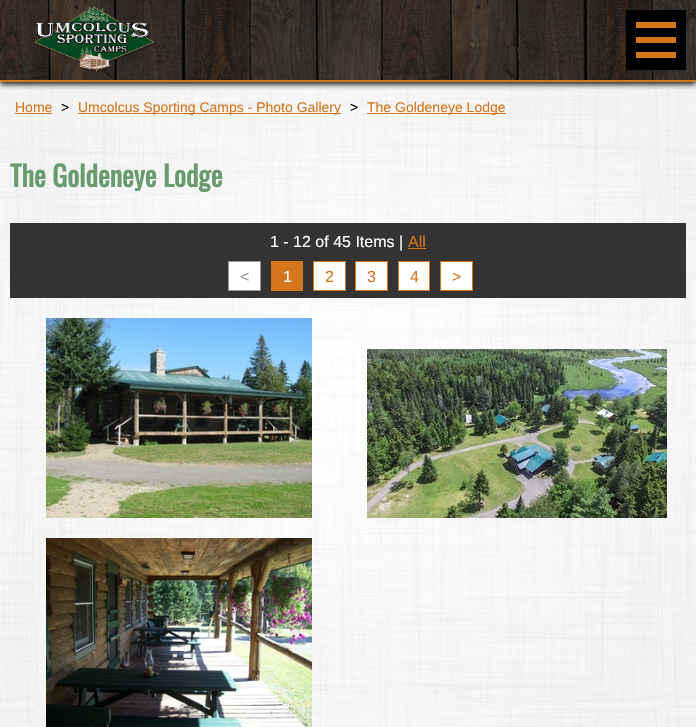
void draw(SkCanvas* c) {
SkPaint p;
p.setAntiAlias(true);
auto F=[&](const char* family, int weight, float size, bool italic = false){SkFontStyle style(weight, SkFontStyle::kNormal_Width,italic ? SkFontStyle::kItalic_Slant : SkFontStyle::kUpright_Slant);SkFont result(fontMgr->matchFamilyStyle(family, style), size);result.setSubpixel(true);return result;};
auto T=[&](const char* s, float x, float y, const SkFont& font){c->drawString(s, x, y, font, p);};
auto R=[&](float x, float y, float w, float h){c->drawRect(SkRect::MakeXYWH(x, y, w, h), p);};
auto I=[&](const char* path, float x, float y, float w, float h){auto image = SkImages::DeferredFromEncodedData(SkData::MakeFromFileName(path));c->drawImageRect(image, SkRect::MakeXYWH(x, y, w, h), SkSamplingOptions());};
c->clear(0xffffffff);
I("1.png",0,0,696,80);
I("3.png",0,82,696,645);
c->save();
c->clipRect(SkRect::MakeXYWH(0,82,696,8));
p.setColor(0xff000000);
p.setMaskFilter(SkMaskFilter::MakeBlur(kNormal_SkBlurStyle, 3));
c->drawRect(SkRect::MakeXYWH(0,2,696,82),p);
p.setMaskFilter(nullptr);
c->restore();
p.setColor(0x66000000);
R(0,0,696,80);
p.setColor(0xffd3761c);
R(0,80,696,2);
I("2.png",34,6,121,67);
p.setColor(0xff000000);
R(626,10,60,60);
p.setColor(0xffd3761c);
R(636,37,40,6);
R(636,22,40,6);
R(636,52,40,6);
auto f1 = F("Liberation Sans",400,14);
T("Home",15,112,f1);
R(15,113,37,1);
p.setColor(0xff000000);
T(">",61,112,f1);
p.setColor(0xffd3761c);
R(78,113,263,1);
T("Umcolcus Sporting Camps - Photo Gallery",78,112,f1);
p.setColor(0xff000000);
T(">",350,112,f1);
p.setColor(0xffd3761c);
R(367,113,139,1);
T("The Goldeneye Lodge",367,112,f1);
auto f2 = F("Oswald",700,28);
p.setColor(0xff689c6d);
T("The Goldeneye Lodge",10,187,f2);
p.setColor(0xff333333);
R(10,223,676,75);
auto f3 = F("Liberation Sans",400,16);
p.setColor(0xffffffff);
T("1 - 12 of 45 Items |",270,247,f3);
p.setColor(0xffd3761c);
T("All",408,247,f3);
R(408,248,18,1);
p.setColor(0xffffffff);
c->drawRect(SkRect::MakeXYWH(228.5,261.5,32,29),p);
p.setStroke(true);
p.setStrokeWidth(1);
p.setColor(0xff999999);
c->drawRect(SkRect::MakeXYWH(228.5,261.5,32,29),p);
p.setStroke(false);
T("<",240,282,f3);
p.setColor(0xffd3761c);
R(271,261,32,30);
p.setColor(0xffffffff);
T("1",283,282,f3);
c->drawRect(SkRect::MakeXYWH(313.5,261.5,32,29),p);
p.setStroke(true);
p.setColor(0xffd3761c);
c->drawRect(SkRect::MakeXYWH(313.5,261.5,32,29),p);
p.setStroke(false);
T("2",325,282,f3);
p.setColor(0xffffffff);
c->drawRect(SkRect::MakeXYWH(355.5,261.5,32,29),p);
p.setStroke(true);
p.setColor(0xffd3761c);
c->drawRect(SkRect::MakeXYWH(355.5,261.5,32,29),p);
p.setStroke(false);
T("3",367,282,f3);
p.setColor(0xffffffff);
c->drawRect(SkRect::MakeXYWH(398.5,261.5,31,29),p);
p.setStroke(true);
p.setColor(0xffd3761c);
c->drawRect(SkRect::MakeXYWH(398.5,261.5,31,29),p);
p.setStroke(false);
T("4",410,282,f3);
p.setColor(0xffffffff);
c->drawRect(SkRect::MakeXYWH(440.5,261.5,32,29),p);
p.setStroke(true);
p.setColor(0xffd3761c);
c->drawRect(SkRect::MakeXYWH(440.5,261.5,32,29),p);
p.setStroke(false);
T(">",452,282,f3);
I("4.png",46,318,266,200);
I("5.png",367,349,300,169);
I("6.png",46,538,266,189);
}
